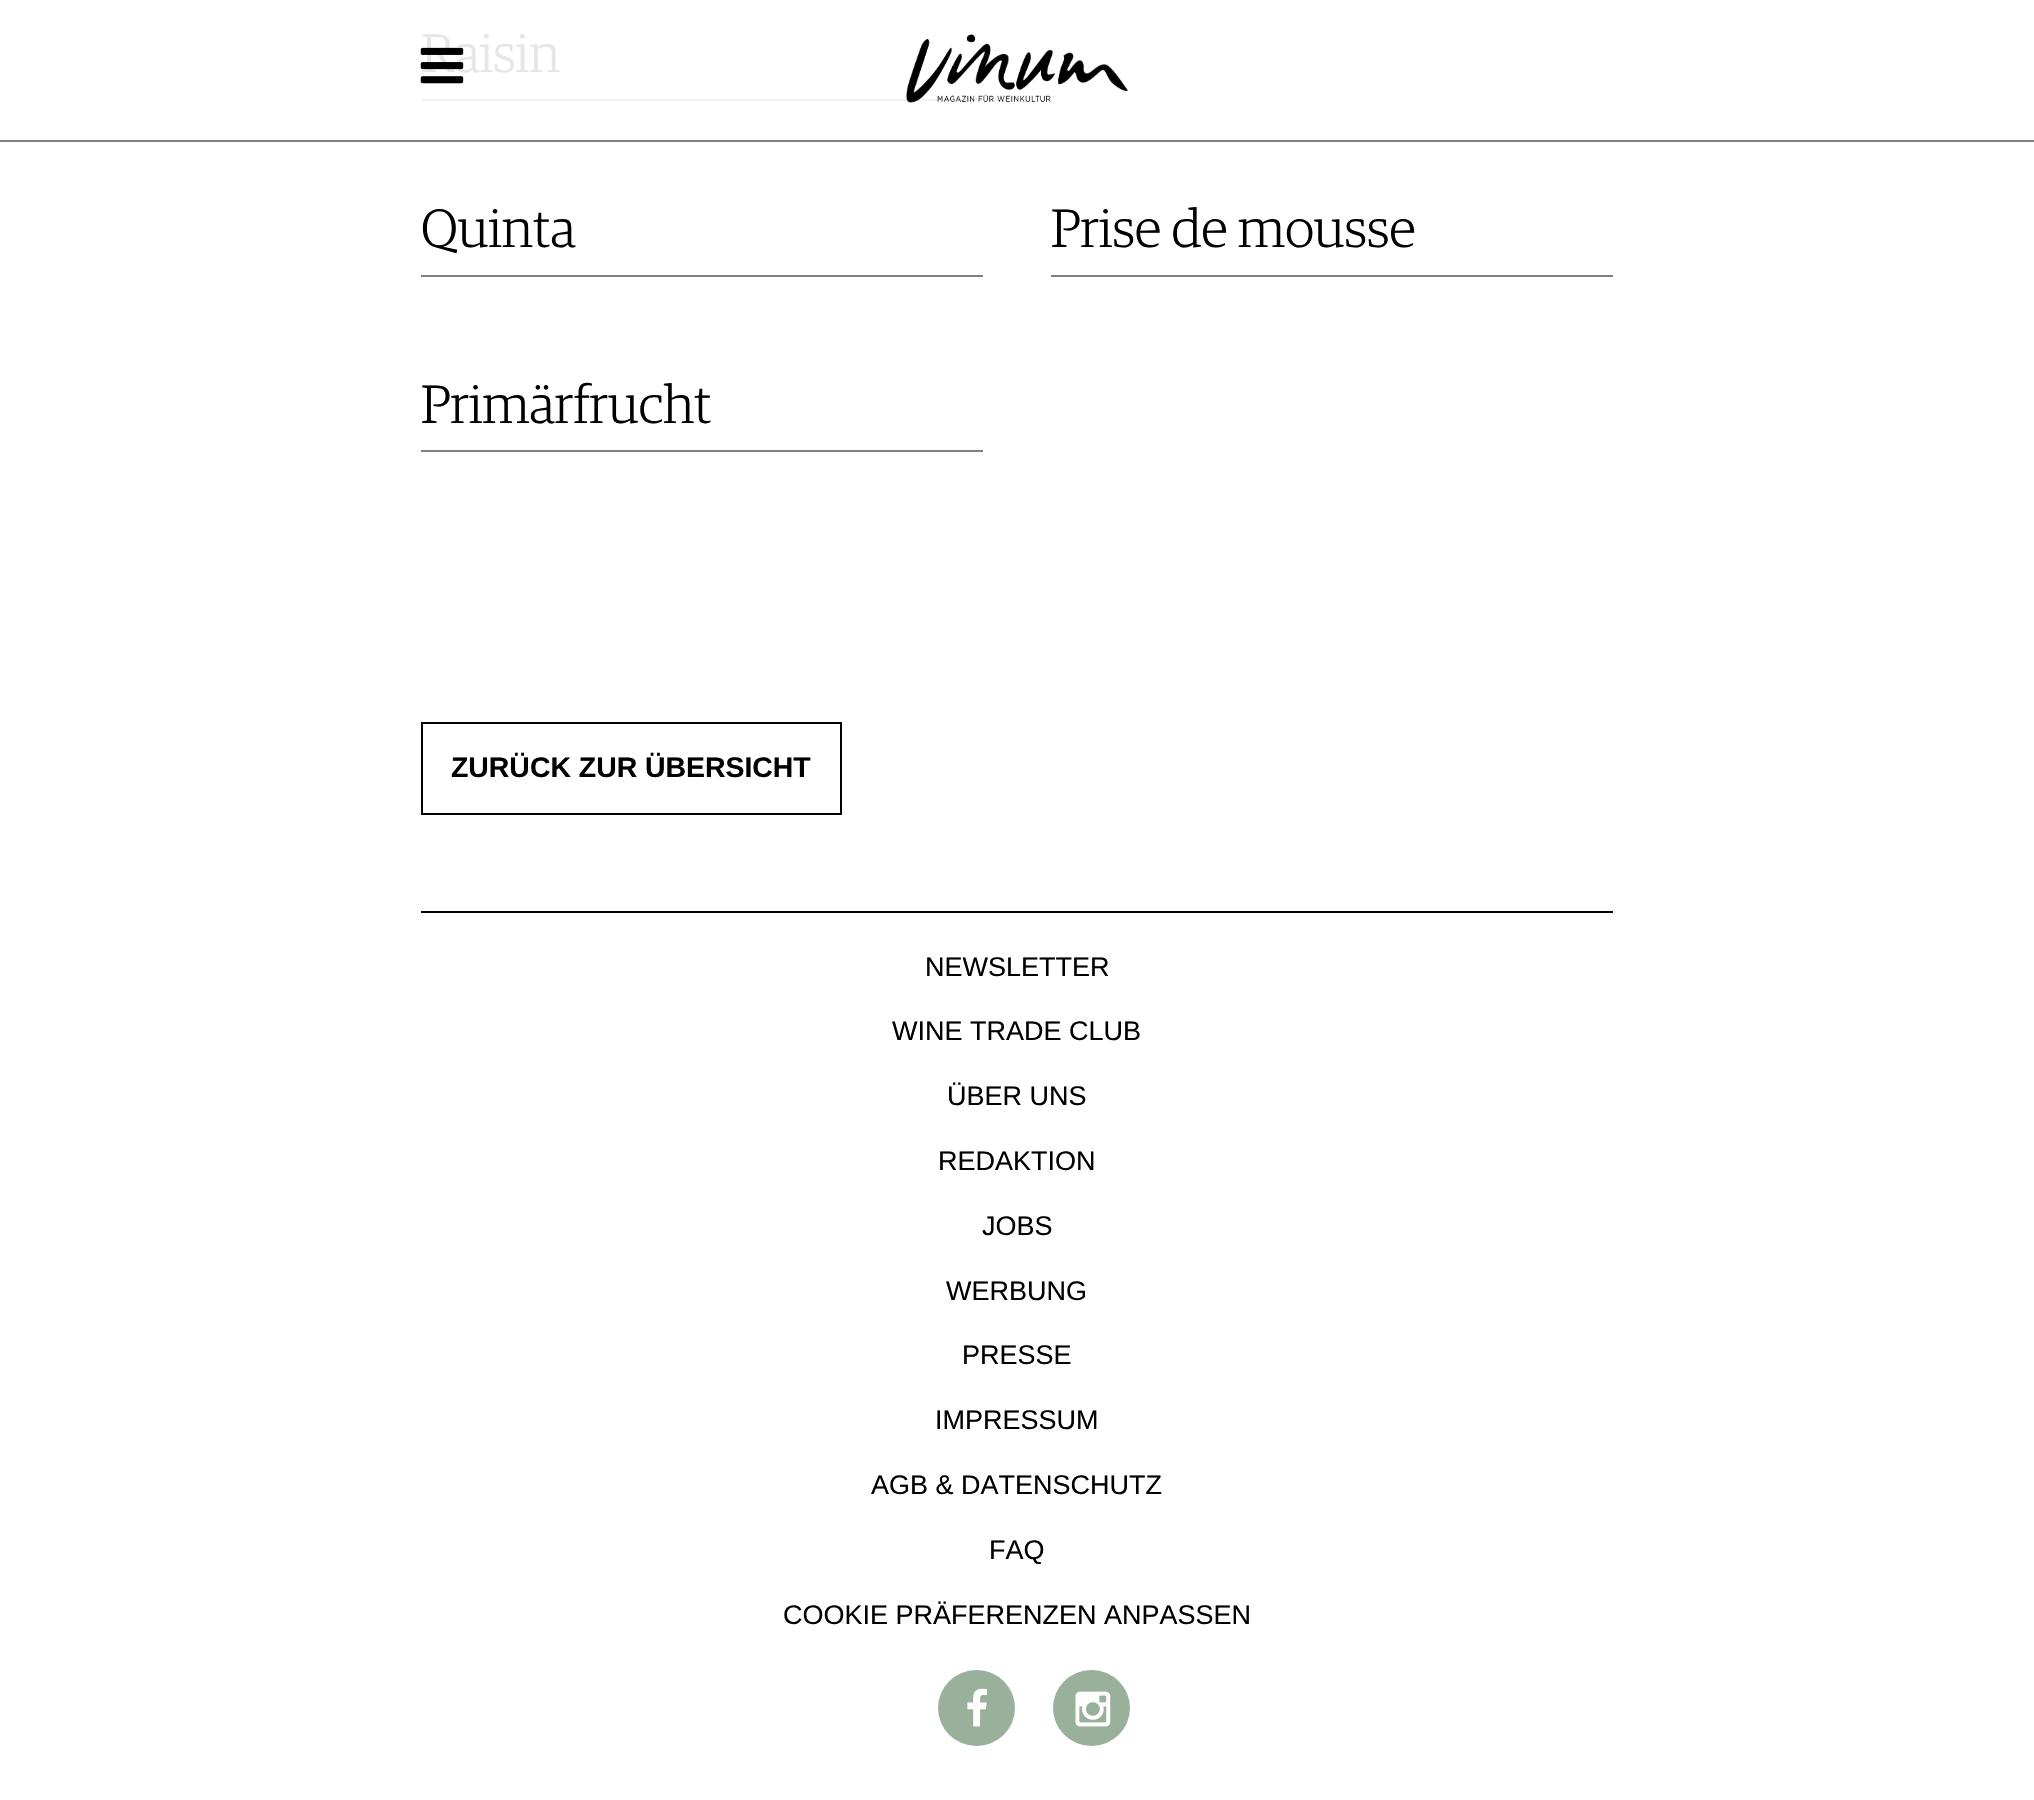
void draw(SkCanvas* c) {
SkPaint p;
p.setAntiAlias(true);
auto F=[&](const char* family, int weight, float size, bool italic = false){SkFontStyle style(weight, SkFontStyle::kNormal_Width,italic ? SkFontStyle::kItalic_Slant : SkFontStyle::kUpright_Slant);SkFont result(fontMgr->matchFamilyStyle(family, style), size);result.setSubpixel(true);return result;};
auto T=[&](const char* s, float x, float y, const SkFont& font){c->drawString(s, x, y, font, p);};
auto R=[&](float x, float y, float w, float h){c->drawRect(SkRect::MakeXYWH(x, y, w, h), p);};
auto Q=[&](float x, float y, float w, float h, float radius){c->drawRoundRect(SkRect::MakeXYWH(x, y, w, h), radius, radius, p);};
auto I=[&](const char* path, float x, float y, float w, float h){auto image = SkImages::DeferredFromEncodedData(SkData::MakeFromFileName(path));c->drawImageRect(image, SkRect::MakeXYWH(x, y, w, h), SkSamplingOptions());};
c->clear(0xffffffff);
p.setColor(0xfff2f2f2);
R(421,99,562,2);
auto f1 = F("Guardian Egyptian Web",300,54);
p.setColor(0xffe6e6e6);
T("Raisin",421,72,f1);
p.setColor(0xff808080);
R(421,275,562,2);
p.setColor(0xff000000);
T("Quinta",421,247,f1);
p.setColor(0xff808080);
R(1051,275,562,2);
p.setColor(0xff000000);
T("Prise de mousse",1051,247,f1);
p.setColor(0xff808080);
R(421,450,562,2);
p.setColor(0xff000000);
T("Primärfrucht",421,423,f1);
p.setStroke(true);
p.setStrokeWidth(2);
c->drawRect(SkRect::MakeXYWH(422,723,419,91),p);
auto f2 = F("Liberation Sans",700,28.4);
p.setStroke(false);
T("ZURÜCK ZUR ÜBERSICHT",451,777,f2);
R(421,911,1192,2);
auto f3 = F("Liberation Sans",400,27);
T("NEWSLETTER",925,976,f3);
T("WINE TRADE CLUB",892,1040,f3);
T("ÜBER UNS",947,1105,f3);
T("REDAKTION",938,1170,f3);
T("JOBS",982,1235,f3);
T("WERBUNG",946,1300,f3);
T("PRESSE",962,1364,f3);
T("IMPRESSUM",935,1429,f3);
T("AGB & DATENSCHUTZ",871,1494,f3);
T("FAQ",989,1559,f3);
T("COOKIE PRÄFERENZEN ANPASSEN",783,1624,f3);
p.setColor(0xff99b19a);
Q(938,1670,77,76,38);
I("1.png",967,1688,20,39);
Q(1053,1670,77,76,38);
I("2.png",1075,1691,36,36);
p.setColor(0xff808080);
R(0,140,2034,2);
I("3.png",420,47,44,37);
I("4.png",906,34,222,69);
}
